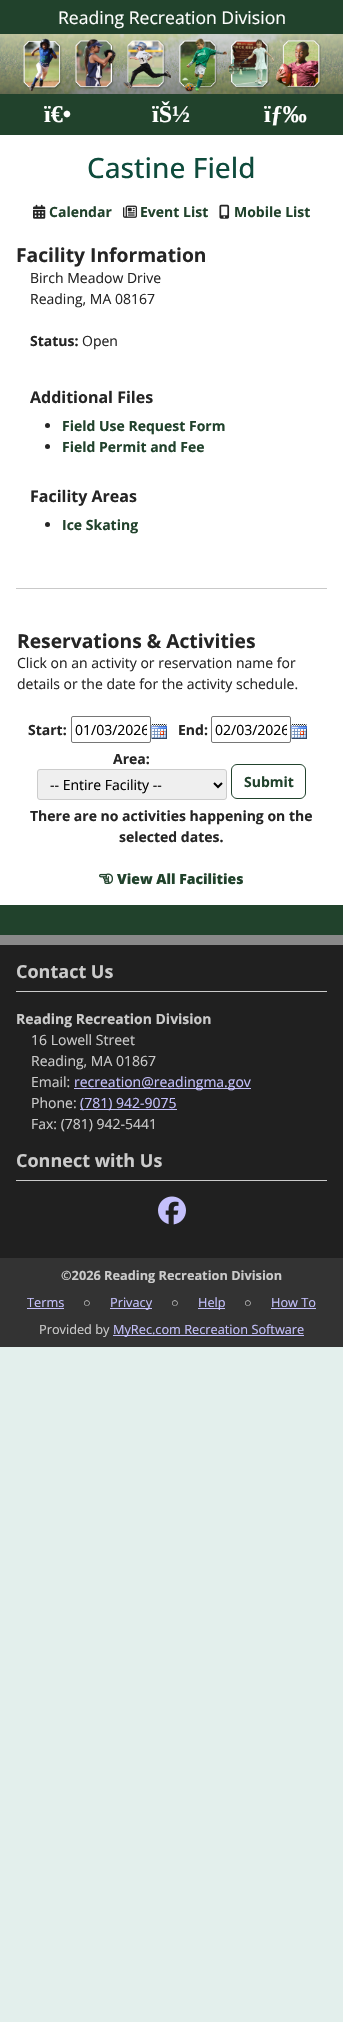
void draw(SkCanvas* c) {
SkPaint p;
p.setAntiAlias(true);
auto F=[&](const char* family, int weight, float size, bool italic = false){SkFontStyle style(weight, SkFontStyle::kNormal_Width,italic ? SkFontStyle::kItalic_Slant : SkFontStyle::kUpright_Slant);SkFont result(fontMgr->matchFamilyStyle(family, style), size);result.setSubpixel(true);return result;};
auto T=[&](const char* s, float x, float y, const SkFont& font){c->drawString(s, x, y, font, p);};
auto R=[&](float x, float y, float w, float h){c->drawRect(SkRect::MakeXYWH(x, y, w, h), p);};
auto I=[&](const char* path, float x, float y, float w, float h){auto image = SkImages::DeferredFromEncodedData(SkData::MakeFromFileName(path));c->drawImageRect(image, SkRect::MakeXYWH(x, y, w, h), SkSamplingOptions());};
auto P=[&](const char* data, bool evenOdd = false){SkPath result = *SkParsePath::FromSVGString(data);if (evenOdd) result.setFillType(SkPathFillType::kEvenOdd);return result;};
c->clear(0xffe3efec);
p.setColor(0xffffffff);
R(0,135,343,770);
p.setColor(0xff21422c);
R(0,0,343,34);
auto f1 = F("Open Sans",400,17.6);
p.setColor(0xffffffff);
T("Reading Recreation Division",58,24,f1);
I("1.png",0,34,343,60);
p.setColor(0xff21422c);
R(0,94,343,41);
auto f2 = F("Liberation Serif",700,24);
p.setColor(0xffffffff);
T("ï€•",44,122,f2);
T("ïŠ½",152,122,f2);
T("ïƒ‰",264,122,f2);
auto f3 = F("Open Sans",500,28);
p.setColor(0xff0e4b3c);
T("Castine Field",87,178,f3);
I("2.png",33,204,13,15);
auto f4 = F("Open Sans",700,14);
p.setColor(0xff21422c);
T("Calendar",49,217,f4);
I("3.png",123,205,14,13);
T("Event List",140,217,f4);
I("4.png",219,204,11,15);
T("Mobile List",234,217,f4);
auto f5 = F("Open Sans",700,19.25);
p.setColor(0xff252525);
T("Facility Information",16,262,f5);
auto f6 = F("Open Sans",400,14);
T("Birch Meadow Drive",30,283,f6);
T("Reading, MA 08167",30,304,f6);
T("Status:",30,346,f4);
T("Open",82,346,f6);
auto f7 = F("Open Sans",700,16);
T("Additional Files",30,403,f7);
c->drawCircle(47.5,425.5,2.5,p);
p.setColor(0xff21422c);
T("Field Use Request Form",62,431,f4);
p.setColor(0xff252525);
c->drawCircle(47.5,446.5,2.5,p);
p.setColor(0xff21422c);
T("Field Permit and Fee",62,452,f4);
p.setColor(0xff252525);
T("Facility Areas",30,502,f7);
c->drawCircle(47.5,524.5,2.5,p);
p.setColor(0xff21422c);
T("Ice Skating",62,530,f4);
p.setColor(0xffc9c9c9);
R(16,588,311,1);
p.setColor(0xff252525);
T("Reservations & Activities",17,648,f5);
T("Click on an activity or reservation name for",17,668,f6);
T("details or the date for the activity schedule.",17,689,f6);
T("Start:",28,735,f4);
p.setStroke(true);
p.setStrokeWidth(1);
p.setColor(0xff767676);
c->drawRoundRect(SkRect::MakeXYWH(71.5,716.5,79,26),1.5,1.5,p);
c->save();
c->clipRect(SkRect::MakeXYWH(75,719,72,21));
p.setStroke(false);
p.setColor(0xff000000);
T("01/03/2026",75,735,f6);
c->restore();
I("5.png",151,724,16,15);
p.setColor(0xff252525);
T("End:",178,735,f4);
p.setStroke(true);
p.setColor(0xff767676);
c->drawRoundRect(SkRect::MakeXYWH(211.5,716.5,79,26),1.5,1.5,p);
c->save();
c->clipRect(SkRect::MakeXYWH(215,719,72,21));
p.setStroke(false);
p.setColor(0xff000000);
T("02/03/2026",215,735,f6);
c->restore();
I("5.png",291,724,16,15);
p.setColor(0xff252525);
T("Area:",113,764,f4);
p.setColor(0xffefefef);
c->drawRoundRect(SkRect::MakeXYWH(37.5,769.5,189,30),2.5,2.5,p);
p.setStroke(true);
p.setColor(0xffcccccc);
c->drawRoundRect(SkRect::MakeXYWH(37.5,769.5,189,30),2.5,2.5,p);
p.setStrokeWidth(2);
p.setColor(0xff000000);
c->drawPath(P("M214 783l4 4l4-4"),p);
p.setStroke(false);
T("-- Entire Facility --",50,790,f6);
p.setStroke(true);
p.setStrokeWidth(1);
p.setColor(0xff21422c);
c->drawRoundRect(SkRect::MakeXYWH(231.5,764.5,74,34),5.5,5.5,p);
p.setStroke(false);
T("Submit",244,787,f4);
p.setColor(0xff252525);
T("There are no activities happening on the",30,821,f4);
T("selected dates.",119,842,f4);
I("6.png",99,873,14,11);
auto f8 = F("Open Sans",800,14);
p.setColor(0xff21422c);
T("View All Facilities",117,884,f8);
R(0,905,343,30);
p.setColor(0xff202020);
R(0,945,343,313);
p.setColor(0xff898989);
R(0,935,343,10);
p.setColor(0xffcbcbcb);
R(16,991,311,1);
auto f9 = F("Open Sans",700,18);
T("Contact Us",16,978,f9);
T("Reading Recreation Division",16,1024,f4);
T("16 Lowell Street",31,1045,f6);
T("Reading, MA 01867",31,1066,f6);
T("Email:",31,1087,f6);
p.setColor(0xffc4c0fb);
R(74,1088,177,1);
T("recreation@readingma.gov",74,1087,f6);
p.setColor(0xffcbcbcb);
T("Phone:",31,1108,f6);
p.setColor(0xffc4c0fb);
R(80,1109,97,1);
T("(781) 942-9075",80,1108,f6);
p.setColor(0xffcbcbcb);
T("Fax: (781) 942-5441",31,1129,f6);
R(16,1180,311,1);
T("Connect with Us",16,1167,f9);
I("7.png",158,1196,28,29);
p.setColor(0xff333333);
R(0,1258,343,89);
auto f10 = F("Open Sans",700,12.75);
p.setColor(0xffcbcbcb);
T("©2026 Reading Recreation Division",61,1280,f10);
auto f11 = F("Open Sans",400,12.75);
p.setColor(0xffc4c0fb);
T("Terms",27,1307,f11);
R(27,1308,37,1);
auto f12 = F("Liberation Serif",400,12.75);
p.setColor(0xffcbcbcb);
T("○",83,1307,f12);
p.setColor(0xffc4c0fb);
R(110,1308,42,1);
T("Privacy",110,1307,f11);
p.setColor(0xffcbcbcb);
T("○",171,1307,f12);
p.setColor(0xffc4c0fb);
R(198,1308,27,1);
T("Help",198,1307,f11);
p.setColor(0xffcbcbcb);
T("○",244,1307,f12);
p.setColor(0xffc4c0fb);
T("How To",271,1307,f11);
R(271,1308,45,1);
p.setColor(0xffcbcbcb);
T("Provided by",39,1334,f11);
p.setColor(0xffc4c0fb);
R(113,1335,191,1);
T("MyRec.com Recreation Software",113,1334,f11);
}
